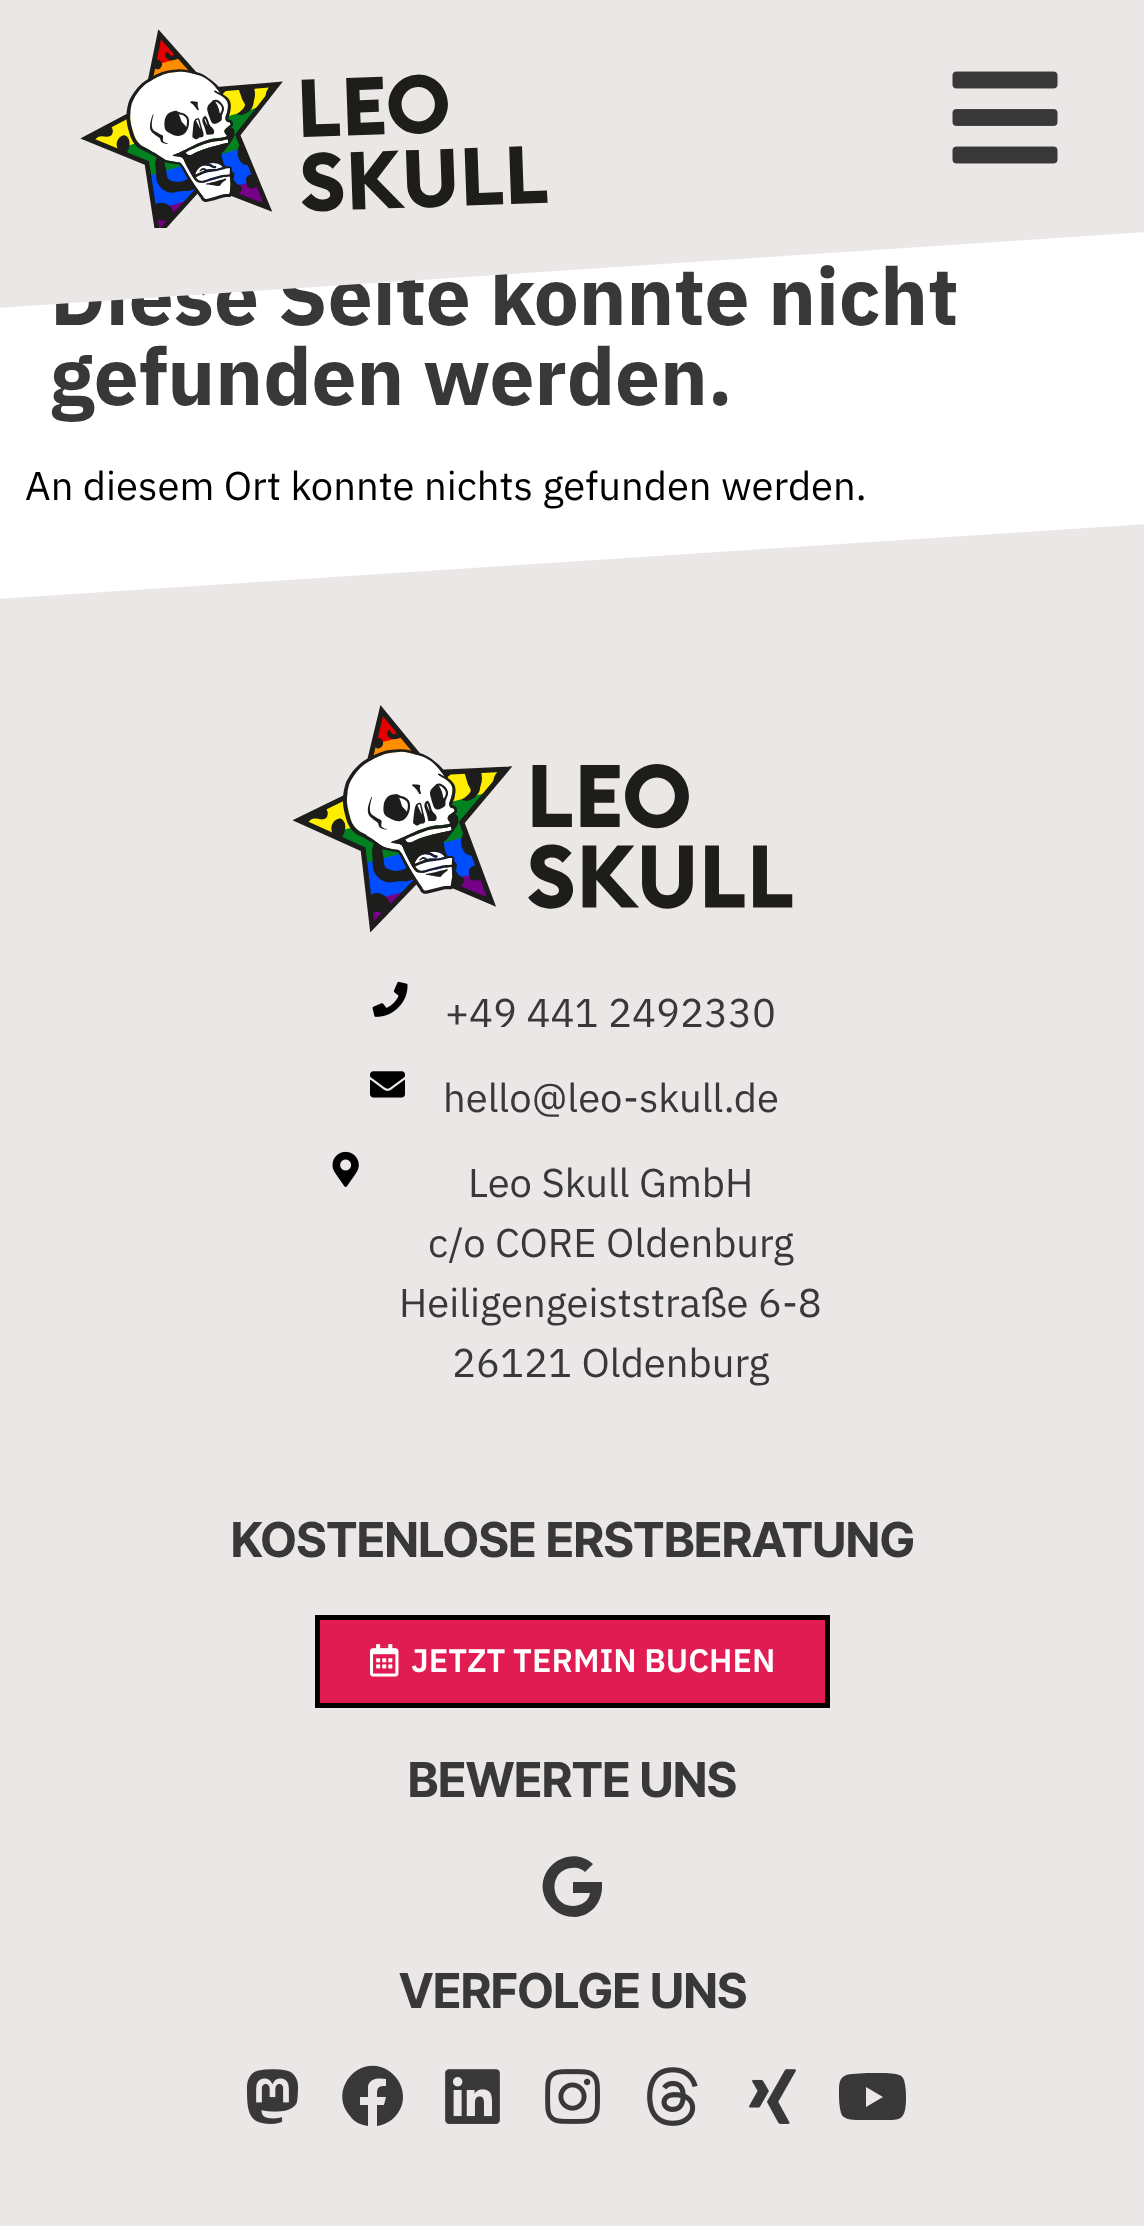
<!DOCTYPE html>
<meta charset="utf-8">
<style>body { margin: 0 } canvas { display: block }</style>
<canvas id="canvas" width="1144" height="2226"></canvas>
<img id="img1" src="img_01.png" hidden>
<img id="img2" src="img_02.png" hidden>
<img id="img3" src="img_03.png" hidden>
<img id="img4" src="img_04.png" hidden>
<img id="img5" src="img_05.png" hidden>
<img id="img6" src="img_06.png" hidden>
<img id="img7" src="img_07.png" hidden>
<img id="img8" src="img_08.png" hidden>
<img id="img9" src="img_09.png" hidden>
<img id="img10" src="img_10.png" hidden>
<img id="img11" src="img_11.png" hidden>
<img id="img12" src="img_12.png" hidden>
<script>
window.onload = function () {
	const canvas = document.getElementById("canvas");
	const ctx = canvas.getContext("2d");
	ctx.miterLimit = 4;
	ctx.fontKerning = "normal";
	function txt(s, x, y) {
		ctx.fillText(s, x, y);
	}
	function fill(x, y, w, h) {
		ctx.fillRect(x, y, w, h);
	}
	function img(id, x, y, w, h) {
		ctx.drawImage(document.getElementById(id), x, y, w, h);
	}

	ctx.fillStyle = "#FFFFFF";
	fill(0, 0, 1144, 2226);
	ctx.fillStyle = "#ECE7E7";
	fill(0, 0, 1144, 228);
	img("img1", 80, 29, 468, 199);
	img("img2", 952, 71, 106, 93);
	ctx.beginPath();
	ctx.moveTo(-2, 599);
	ctx.lineTo(-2, 604);
	ctx.lineTo(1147, 604);
	ctx.lineTo(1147, 524);
	ctx.closePath();
	ctx.fill();
	fill(0, 604, 1144, 1622);
	img("img3", 293, 705, 500, 228);
	img("img4", 372, 981, 36, 36);
	img("img5", 370, 1071, 35, 27);
	img("img6", 332, 1151, 27, 36);
	ctx.fillStyle = "#E11C53";
	ctx.beginPath();
	ctx.rect(317.5, 1617.5, 510, 88);
	ctx.fill();
	ctx.strokeStyle = "#000000";
	ctx.lineWidth = 5;
	ctx.stroke();
	img("img7", 370, 1644, 29, 33);
	ctx.fillStyle = "#383838";
	ctx.beginPath();
	ctx.moveTo(602, 1887);
	ctx.bezierCurveTo(602, 1903, 591, 1916, 575, 1917);
	ctx.bezierCurveTo(566, 1917, 558, 1914, 552, 1908);
	ctx.bezierCurveTo(547, 1903, 544, 1897, 543, 1891);
	ctx.bezierCurveTo(539, 1863, 573, 1845, 593, 1864);
	ctx.lineTo(585, 1872);
	ctx.bezierCurveTo(582, 1869, 577, 1867, 572, 1868);
	ctx.bezierCurveTo(548, 1869, 549, 1906, 573, 1906);
	ctx.bezierCurveTo(581, 1906, 589, 1901, 590, 1893);
	ctx.lineTo(573, 1893);
	ctx.lineTo(573, 1882);
	ctx.lineTo(602, 1882);
	ctx.closePath();
	ctx.fill();
	img("img8", 247, 2069, 51, 55);
	ctx.beginPath();
	ctx.moveTo(403, 2097);
	ctx.bezierCurveTo(403, 2111, 392, 2124, 377, 2126);
	ctx.lineTo(377, 2105);
	ctx.lineTo(384, 2105);
	ctx.lineTo(386, 2097);
	ctx.lineTo(377, 2097);
	ctx.bezierCurveTo(377, 2088, 377, 2086, 386, 2086);
	ctx.lineTo(386, 2079);
	ctx.bezierCurveTo(379, 2078, 370, 2078, 368, 2086);
	ctx.lineTo(368, 2097);
	ctx.lineTo(360, 2097);
	ctx.lineTo(360, 2105);
	ctx.lineTo(368, 2105);
	ctx.lineTo(368, 2126);
	ctx.bezierCurveTo(361, 2125, 354, 2122, 350, 2116);
	ctx.bezierCurveTo(327, 2090, 360, 2052, 389, 2071);
	ctx.bezierCurveTo(398, 2077, 403, 2087, 403, 2097);
	ctx.closePath();
	ctx.fill();
	img("img9", 445, 2069, 55, 55);
	img("img10", 545, 2069, 55, 55);
	img("img11", 647, 2067, 51, 59);
	img("img12", 749, 2069, 47, 55);
	ctx.beginPath();
	ctx.moveTo(904, 2080);
	ctx.bezierCurveTo(906, 2087, 906, 2094, 906, 2101);
	ctx.bezierCurveTo(905, 2122, 899, 2120, 880, 2120);
	ctx.lineTo(863, 2120);
	ctx.bezierCurveTo(857, 2120, 843, 2121, 841, 2113);
	ctx.bezierCurveTo(839, 2106, 839, 2099, 839, 2092);
	ctx.bezierCurveTo(839, 2081, 840, 2075, 852, 2074);
	ctx.lineTo(867, 2073);
	ctx.lineTo(886, 2073);
	ctx.bezierCurveTo(893, 2074, 902, 2073, 904, 2080);
	ctx.closePath();
	ctx.moveTo(866, 2107);
	ctx.lineTo(883, 2097);
	ctx.lineTo(866, 2087);
	ctx.closePath();
	ctx.fill();
	ctx.font = "bold 80px IBM Plex Sans";
	txt("Diese Seite konnte nicht", 50, 325);
	ctx.fillStyle = "#ECE7E7";
	ctx.beginPath();
	ctx.moveTo(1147, 232);
	ctx.lineTo(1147, 228);
	ctx.lineTo(-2, 228);
	ctx.lineTo(-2, 308);
	ctx.closePath();
	ctx.fill();
	ctx.fillStyle = "#383838";
	txt("gefunden werden.", 50, 405);
	ctx.font = "40px IBM Plex Sans";
	ctx.fillStyle = "#000000";
	txt("An diesem Ort konnte nichts gefunden werden.", 25, 500);
	ctx.fillStyle = "#383838";
	txt("+49 441 2492330", 445, 1027);
	txt("hello@leo-skull.de", 443, 1112);
	txt("Leo Skull GmbH", 468, 1197);
	txt("c/o CORE Oldenburg", 428, 1257);
	txt("Heiligengeiststraße 6-8", 399, 1317);
	txt("26121 Oldenburg", 452, 1377);
	ctx.font = "bold 48px Inter Tight";
	txt("KOSTENLOSE ERSTBERATUNG", 231, 1557);
	ctx.font = "600 32.5px IBM Plex Sans";
	ctx.fillStyle = "#FFFFFF";
	txt("JETZT TERMIN BUCHEN", 411, 1672);
	ctx.font = "bold 48px Inter Tight";
	ctx.fillStyle = "#383838";
	txt("BEWERTE UNS", 408, 1797);
	txt("VERFOLGE UNS", 399, 2008);
};
</script>
